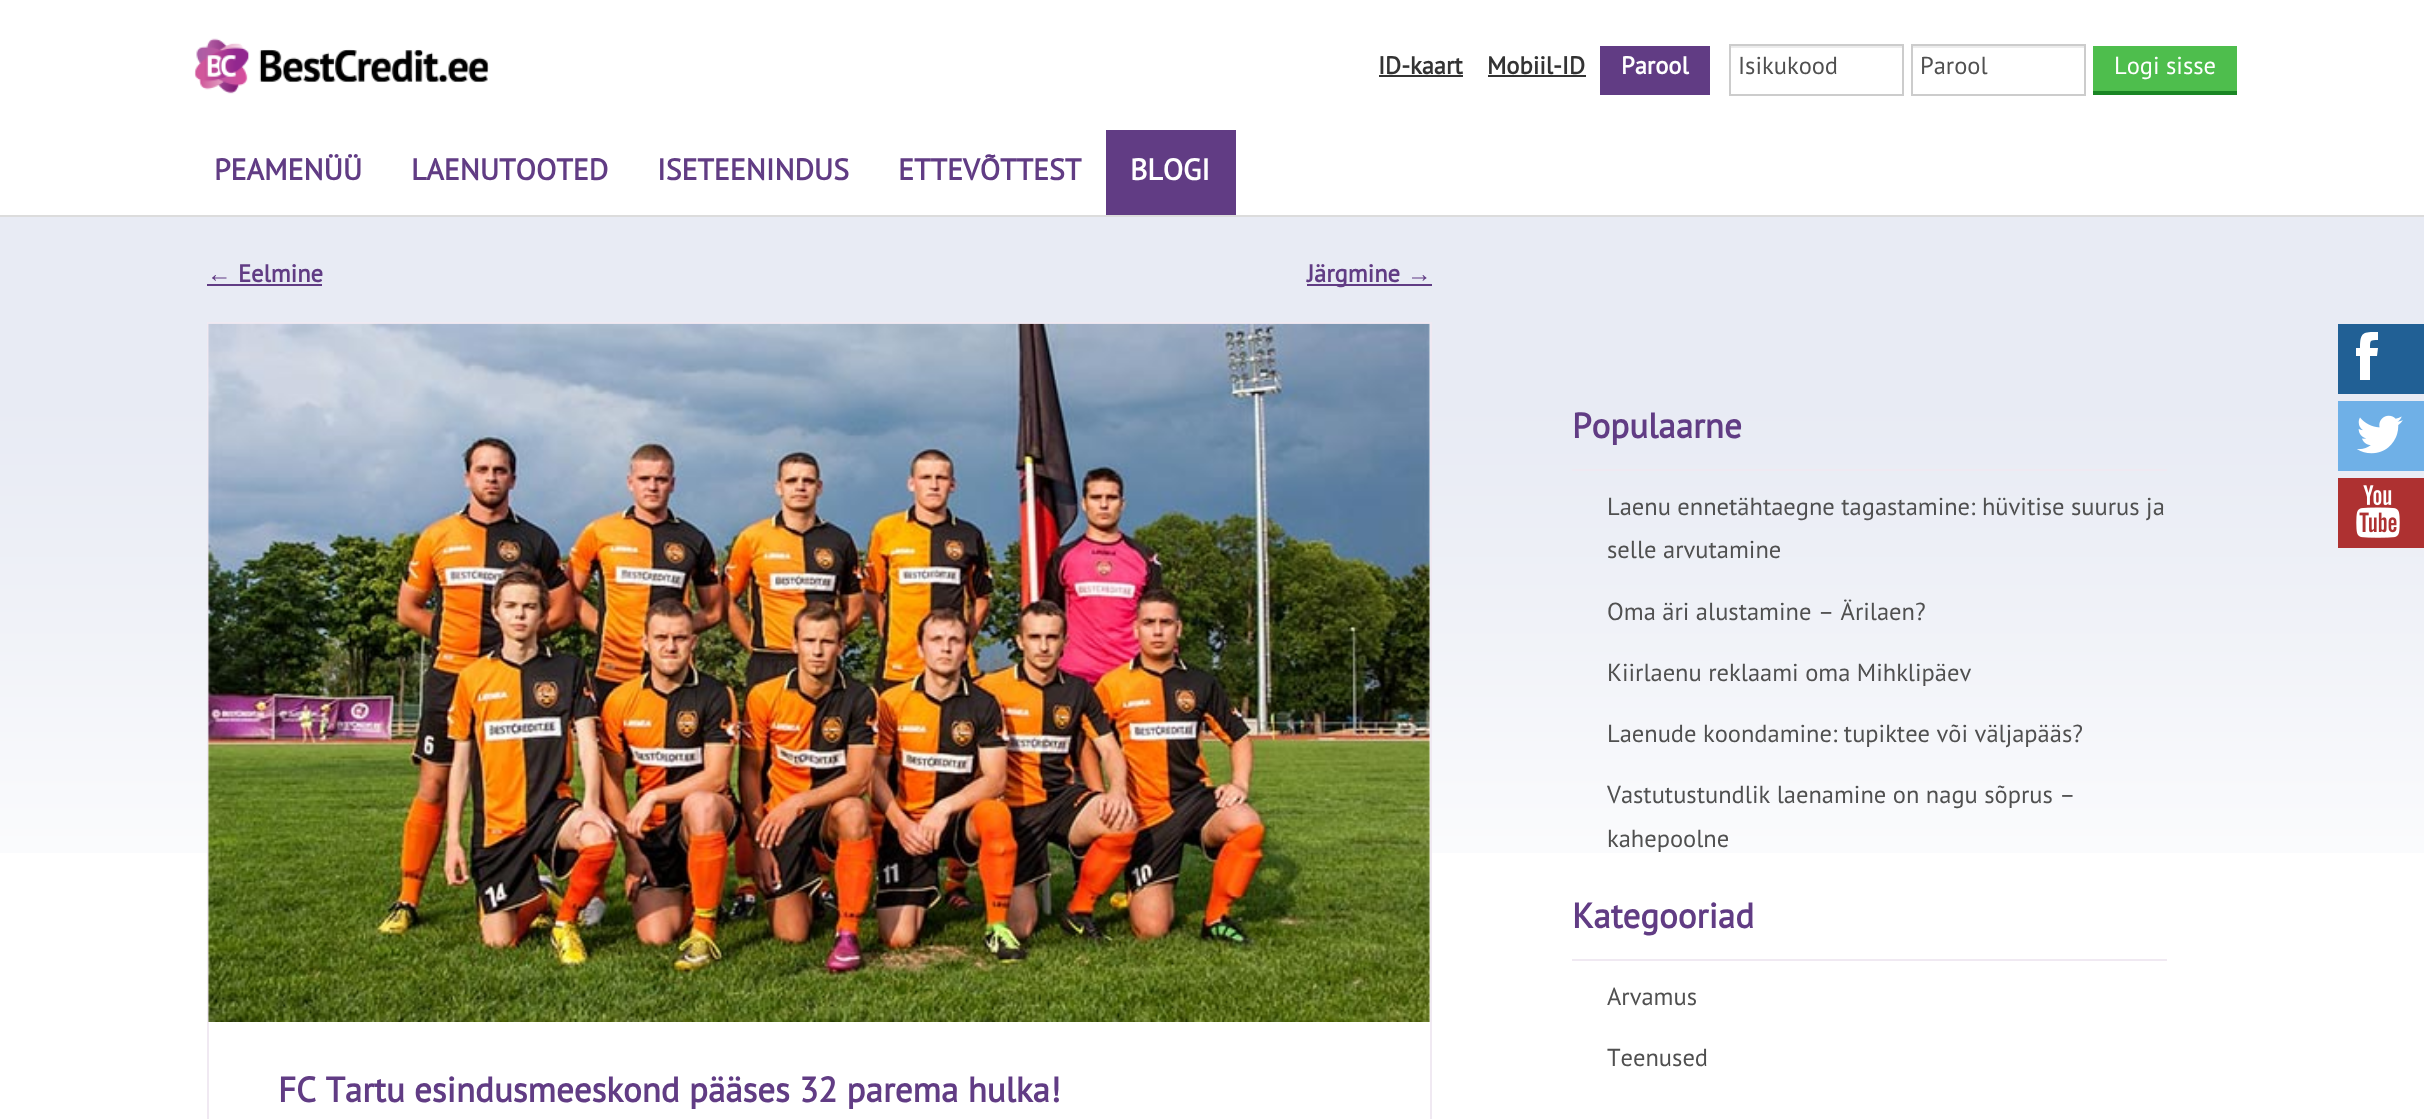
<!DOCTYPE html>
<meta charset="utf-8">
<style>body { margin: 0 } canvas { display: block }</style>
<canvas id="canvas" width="2424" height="1119"></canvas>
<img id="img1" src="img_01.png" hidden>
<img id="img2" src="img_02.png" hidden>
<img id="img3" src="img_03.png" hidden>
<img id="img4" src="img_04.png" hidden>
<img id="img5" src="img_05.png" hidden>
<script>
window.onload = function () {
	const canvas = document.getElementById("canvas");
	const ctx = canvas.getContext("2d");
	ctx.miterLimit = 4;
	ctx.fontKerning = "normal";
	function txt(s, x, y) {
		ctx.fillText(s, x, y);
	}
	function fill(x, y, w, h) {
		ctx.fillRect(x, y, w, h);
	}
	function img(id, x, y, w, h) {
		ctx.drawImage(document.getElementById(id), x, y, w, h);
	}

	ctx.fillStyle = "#FFFFFF";
	fill(0, 0, 2424, 1119);
	img("img1", 194, 38, 295, 56);
	ctx.fillStyle = "#333333";
	fill(1379, 75, 84, 2);
	fill(1488, 75, 98, 2);
	ctx.fillStyle = "#613C84";
	fill(1600, 46, 110, 49);
	ctx.fillStyle = "#ECECEC";
	fill(1731, 46, 171, 2);
	ctx.strokeStyle = "#CCCCCC";
	ctx.lineWidth = 2;
	ctx.strokeRect(1730, 45, 173, 50);
	fill(1913, 46, 171, 2);
	ctx.strokeRect(1912, 45, 173, 50);
	ctx.fillStyle = "#4EBE4D";
	fill(2093, 46, 144, 45);
	ctx.fillStyle = "#1A8624";
	fill(2093, 91, 144, 4);
	ctx.fillStyle = "#613C84";
	fill(1106, 130, 130, 85);
	ctx.fillStyle = "#DCDCDC";
	fill(0, 215, 2424, 2);
	img("img2", 0, 217, 2424, 636);
	ctx.fillStyle = "#613C84";
	fill(207, 284, 115, 2);
	fill(1307, 284, 125, 2);
	ctx.fillStyle = "#F0E9F2";
	fill(1572, 469, 595, 2);
	fill(1572, 959, 595, 2);
	ctx.fillStyle = "#FFFFFF";
	fill(209, 324, 1221, 529);
	ctx.strokeStyle = "#F0E9F2";
	ctx.strokeRect(208, 323, 1223, 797);
	img("img3", 208, 323, 1222, 699);
	ctx.fillStyle = "#216095";
	fill(2338, 324, 86, 70);
	ctx.fillStyle = "#FFFFFF";
	ctx.beginPath();
	ctx.moveTo(2370, 348);
	ctx.lineTo(2378, 348);
	ctx.lineTo(2377, 356);
	ctx.lineTo(2370, 356);
	ctx.lineTo(2370, 380);
	ctx.lineTo(2360, 380);
	ctx.lineTo(2360, 356);
	ctx.lineTo(2356, 356);
	ctx.lineTo(2356, 348);
	ctx.lineTo(2360, 348);
	ctx.bezierCurveTo(2360, 332, 2363, 332, 2378, 332);
	ctx.lineTo(2378, 340);
	ctx.bezierCurveTo(2370, 340, 2370, 340, 2370, 348);
	ctx.closePath();
	ctx.fill();
	ctx.fillStyle = "#6FB0E7";
	fill(2338, 401, 86, 70);
	img("img4", 2357, 415, 46, 39);
	ctx.fillStyle = "#AE3131";
	fill(2338, 478, 86, 70);
	img("img5", 2356, 485, 44, 53);
	ctx.font = "bold 24.5px PT Sans";
	ctx.fillStyle = "#333333";
	txt("ID-kaart", 1378, 74);
	txt("Mobiil-ID", 1487, 74);
	ctx.fillStyle = "#FFFFFF";
	txt("Parool", 1621, 74);
	ctx.font = "24.5px PT Sans";
	ctx.fillStyle = "#505050";
	txt("Isikukood", 1738, 74);
	txt("Parool", 1920, 74);
	ctx.fillStyle = "#FFFFFF";
	txt("Logi sisse", 2114, 74);
	ctx.font = "bold 29.75px PT Sans";
	ctx.fillStyle = "#613C84";
	txt("PEAMENÜÜ", 214, 180);
	txt("LAENUTOOTED", 411, 180);
	txt("ISETEENINDUS", 657, 180);
	txt("ETTEVÕTTEST", 898, 180);
	ctx.fillStyle = "#FFFFFF";
	txt("BLOGI", 1130, 180);
	ctx.font = "bold 24.5px Liberation Sans";
	ctx.fillStyle = "#613C84";
	txt("←", 207, 282);
	ctx.font = "bold 24.5px PT Sans";
	txt("Eelmine", 238, 282);
	txt("Järgmine", 1307, 282);
	ctx.font = "bold 24.5px Liberation Sans";
	txt("→", 1407, 282);
	ctx.font = "bold 35px PT Sans";
	txt("Populaarne", 1572, 438);
	ctx.font = "24.5px PT Sans";
	ctx.fillStyle = "#505050";
	txt("Laenu ennetähtaegne tagastamine: hüvitise suurus ja", 1607, 515);
	txt("selle arvutamine", 1607, 558);
	txt("Oma äri alustamine – Ärilaen?", 1607, 620);
	txt("Kiirlaenu reklaami oma Mihklipäev", 1607, 681);
	txt("Laenude koondamine: tupiktee või väljapääs?", 1607, 742);
	txt("Vastutustundlik laenamine on nagu sõprus –", 1607, 803);
	txt("kahepoolne", 1607, 847);
	ctx.font = "bold 35px PT Sans";
	ctx.fillStyle = "#613C84";
	txt("Kategooriad", 1572, 928);
	ctx.font = "24.5px PT Sans";
	ctx.fillStyle = "#505050";
	txt("Arvamus", 1607, 1005);
	txt("Teenused", 1607, 1066);
	ctx.font = "bold 35px PT Sans";
	ctx.fillStyle = "#613C84";
	txt("FC Tartu esindusmeeskond pääses 32 parema hulka!", 278, 1102);
};
</script>
